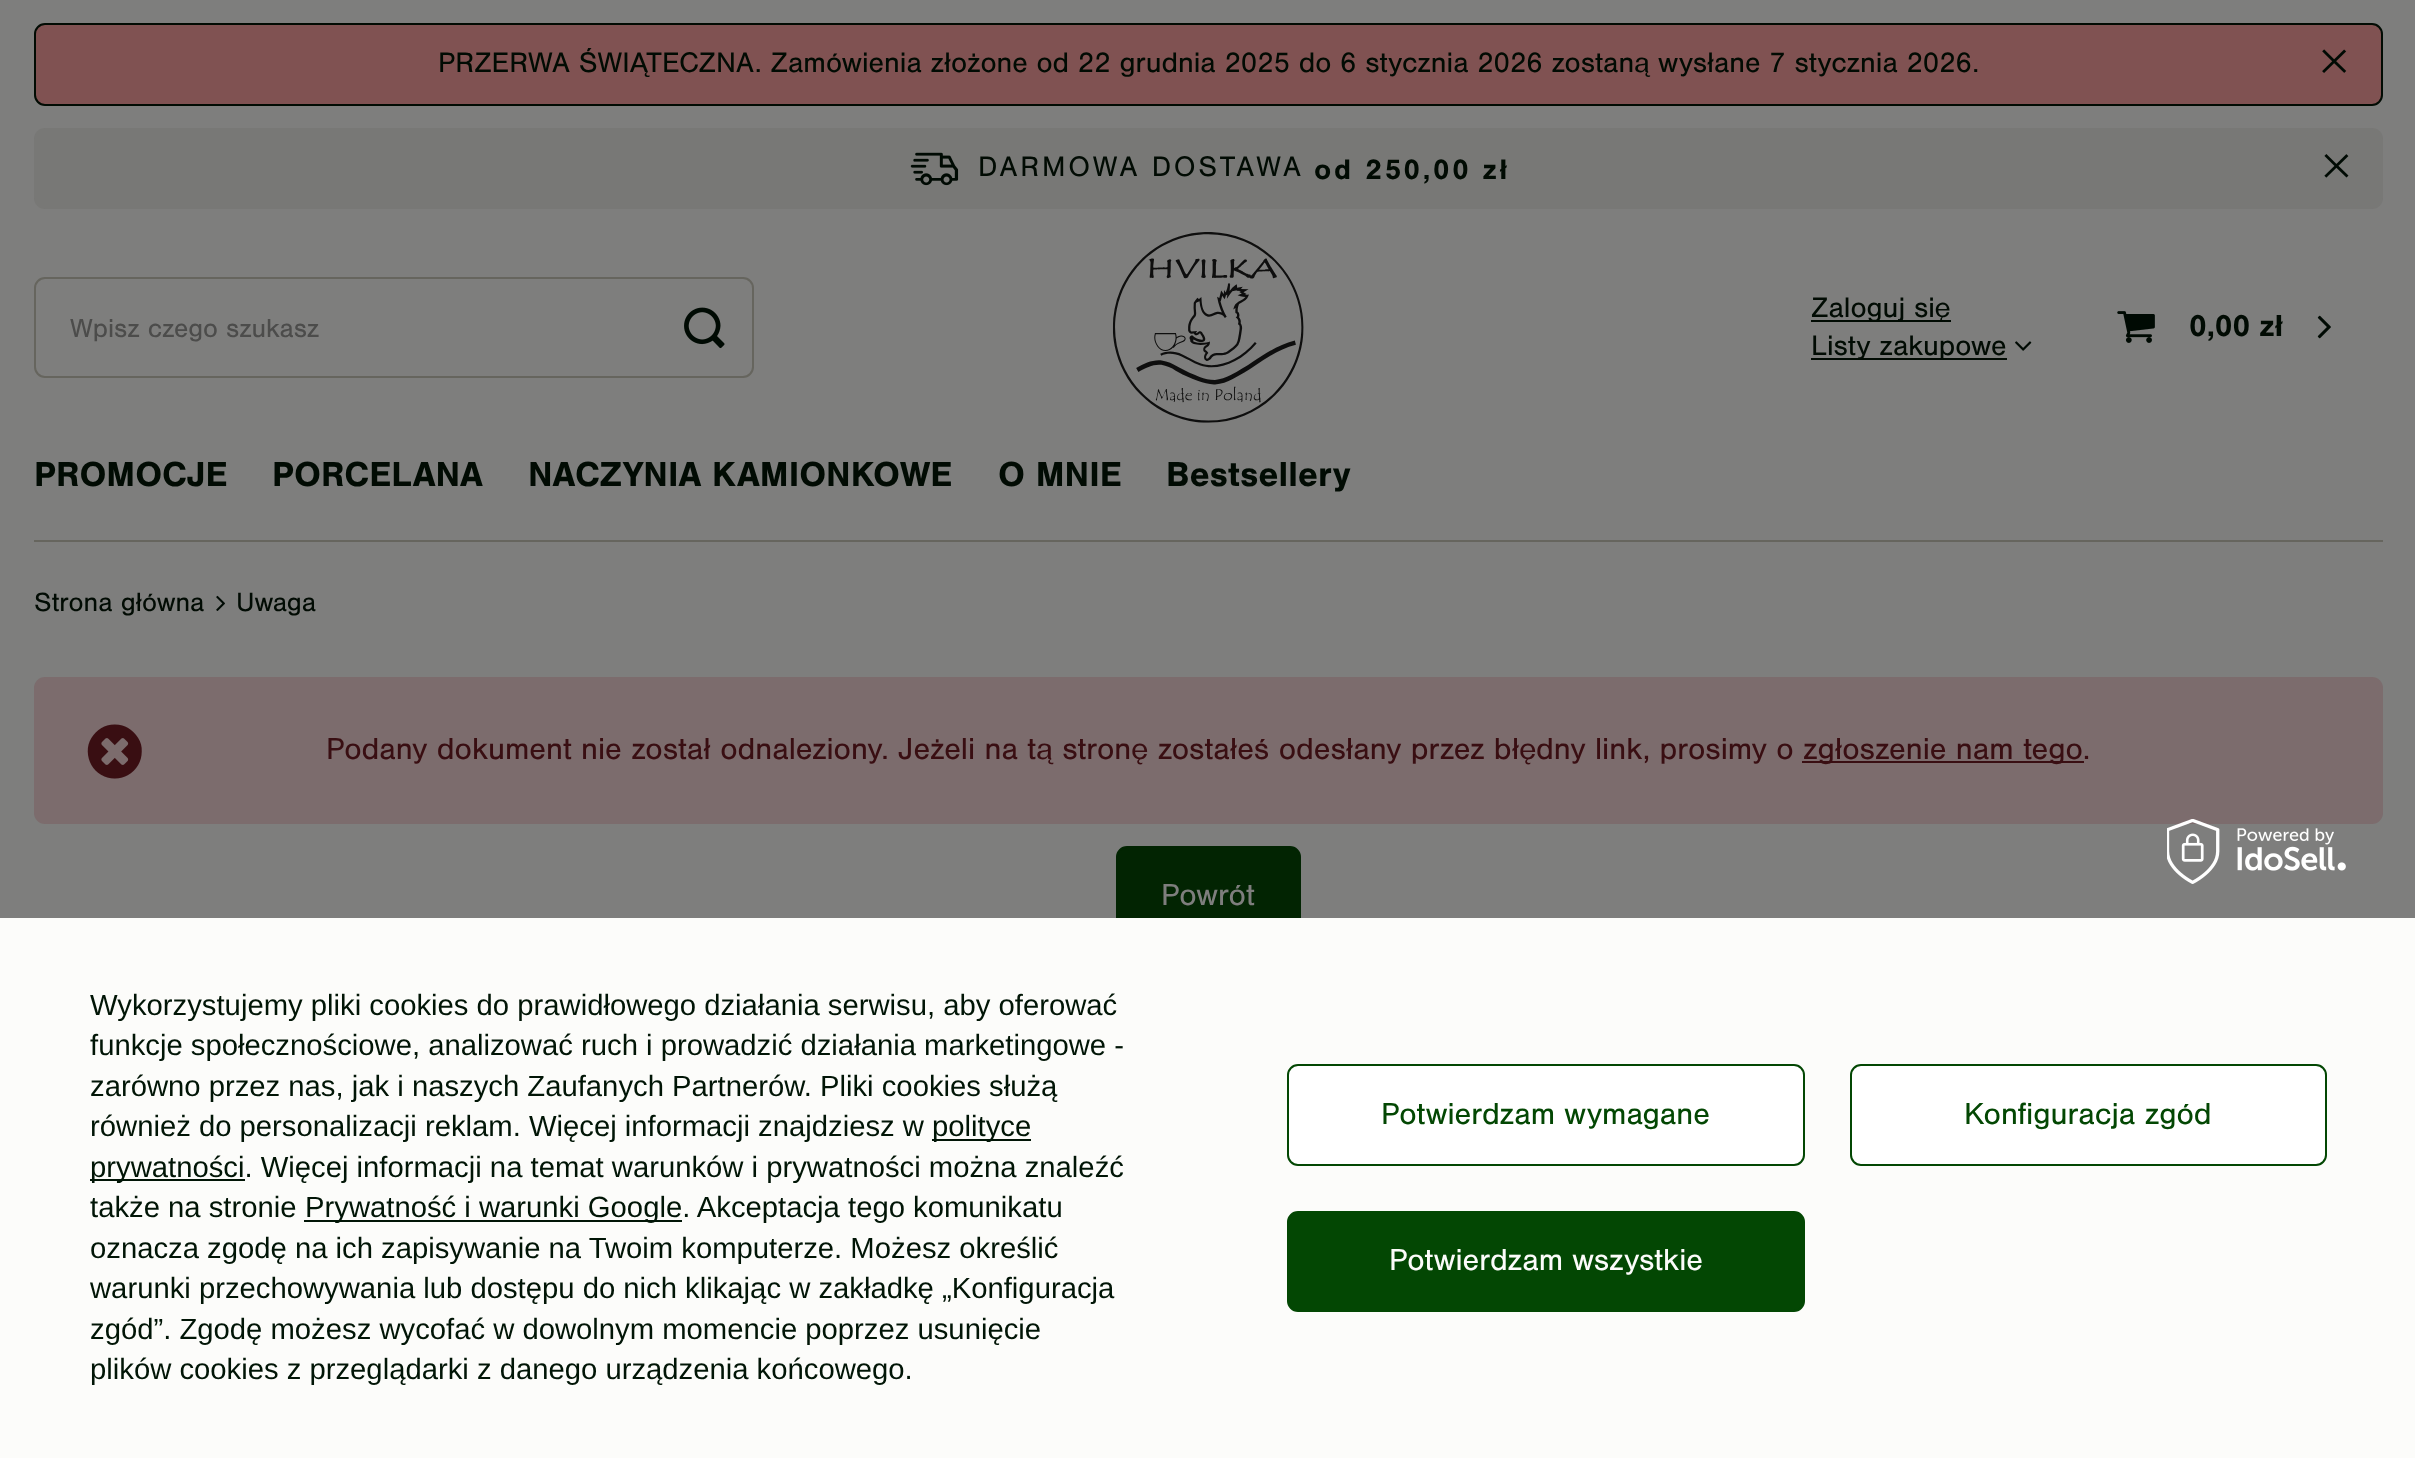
<!DOCTYPE html>
<meta charset="utf-8">
<style>body { margin: 0 } canvas { display: block }</style>
<canvas id="canvas" width="2415" height="1458"></canvas>
<img id="img1" src="img_01.png" hidden>
<img id="img2" src="img_02.png" hidden>
<img id="img3" src="img_03.png" hidden>
<img id="img4" src="img_04.png" hidden>
<img id="img5" src="img_05.png" hidden>
<img id="img6" src="img_06.png" hidden>
<img id="img7" src="img_07.png" hidden>
<img id="img8" src="img_08.png" hidden>
<img id="img9" src="img_09.png" hidden>
<img id="img10" src="img_10.png" hidden>
<img id="img11" src="img_11.png" hidden>
<script>
window.onload = function () {
	const canvas = document.getElementById("canvas");
	const ctx = canvas.getContext("2d");
	ctx.miterLimit = 4;
	ctx.fontKerning = "normal";
	function txt(s, x, y) {
		ctx.fillText(s, x, y);
	}
	function fill(x, y, w, h) {
		ctx.fillRect(x, y, w, h);
	}
	function round(x, y, w, h, r) {
		ctx.beginPath();
		ctx.roundRect(x, y, w, h, r);
		ctx.fill();
	}
	function img(id, x, y, w, h) {
		ctx.drawImage(document.getElementById(id), x, y, w, h);
	}

	ctx.fillStyle = "#7E7E7D";
	fill(0, 0, 2415, 1458);
	ctx.fillStyle = "#805252";
	ctx.beginPath();
	ctx.roundRect(35, 24, 2347, 81, 10);
	ctx.fill();
	ctx.strokeStyle = "#010B03";
	ctx.lineWidth = 2;
	ctx.stroke();
	img("img1", 2322, 49, 25, 24);
	ctx.fillStyle = "#787876";
	round(34, 128, 2349, 81, 11);
	img("img2", 910, 152, 49, 34);
	img("img3", 2324, 154, 25, 24);
	ctx.beginPath();
	ctx.roundRect(35, 278, 718, 99, 10);
	ctx.strokeStyle = "#66655E";
	ctx.stroke();
	img("img4", 684, 307, 41, 42);
	img("img5", 1112, 232, 192, 191);
	ctx.fillStyle = "#010B03";
	fill(1811, 320, 140, 2);
	fill(1811, 358, 196, 2);
	img("img6", 2015, 341, 17, 10);
	img("img7", 2117, 311, 38, 32);
	img("img8", 2317, 315, 14, 24);
	ctx.fillStyle = "#66655E";
	fill(34, 540, 2349, 2);
	img("img9", 216, 595, 9, 16);
	ctx.fillStyle = "#7C6C6D";
	round(34, 677, 2349, 147, 11);
	img("img10", 87, 724, 55, 55);
	ctx.fillStyle = "#390E12";
	fill(1802, 761, 282, 2);
	ctx.fillStyle = "#022402";
	ctx.beginPath();
	ctx.roundRect(1117, 847, 183, 99, 10);
	ctx.fill();
	ctx.strokeStyle = "#022402";
	ctx.stroke();
	ctx.fillStyle = "#FCFCFA";
	fill(0, 918, 2415, 540);
	img("img11", 2167, 819, 179, 65);
	ctx.fillStyle = "#011506";
	fill(932, 1139, 99, 2);
	fill(90, 1179, 155, 2);
	fill(304, 1220, 378, 2);
	ctx.fillStyle = "#FFFFFF";
	ctx.beginPath();
	ctx.roundRect(1288, 1065, 516, 100, 10);
	ctx.fill();
	ctx.strokeStyle = "#034703";
	ctx.stroke();
	ctx.beginPath();
	ctx.roundRect(1851, 1065, 475, 100, 10);
	ctx.fill();
	ctx.stroke();
	ctx.fillStyle = "#034703";
	ctx.beginPath();
	ctx.roundRect(1288, 1212, 516, 99, 10);
	ctx.fill();
	ctx.stroke();
	ctx.font = "29.25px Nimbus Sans";
	ctx.fillStyle = "#010B03";
	txt("PRZERWA ŚWIĄTECZNA. Zamówienia złożone od 22 grudnia 2025 do 6 stycznia 2026 zostaną wysłane 7 stycznia 2026.", 438, 72);
	ctx.letterSpacing = "2.75px";
	txt("DARMOWA DOSTAWA", 978, 176);
	ctx.font = "bold 29.25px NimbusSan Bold";
	txt("od 250,00 zł", 1314, 179);
	ctx.letterSpacing = "0px";
	ctx.font = "27px Nimbus Sans";
	ctx.fillStyle = "#4C4C4B";
	txt("Wpisz czego szukasz", 70, 337);
	ctx.font = "29.25px Nimbus Sans";
	ctx.fillStyle = "#010B03";
	txt("Zaloguj się", 1811, 317);
	txt("Listy zakupowe", 1811, 355);
	ctx.font = "bold 31.5px NimbusSan Bold";
	txt("0,00 zł", 2189, 336);
	ctx.font = "bold 36px NimbusSan Bold";
	txt("PROMOCJE", 34, 486);
	txt("PORCELANA", 272, 486);
	txt("NACZYNIA KAMIONKOWE", 528, 486);
	txt("O MNIE", 998, 486);
	txt("Bestsellery", 1166, 486);
	ctx.font = "27.25px Nimbus Sans";
	txt("Strona główna", 34, 611);
	txt("Uwaga", 236, 611);
	ctx.font = "31.5px Nimbus Sans";
	ctx.fillStyle = "#390E12";
	txt("Podany dokument nie został odnaleziony. Jeżeli na tą stronę zostałeś odesłany przez błędny link, prosimy o", 326, 759);
	txt("zgłoszenie nam tego.", 1803, 759);
	ctx.fillStyle = "#7E7E7D";
	txt("Powrót", 1161, 905);
	ctx.font = "29.25px Liberation Sans";
	ctx.fillStyle = "#011506";
	txt("Wykorzystujemy pliki cookies do prawidłowego działania serwisu, aby oferować", 90, 1015);
	txt("funkcje społecznościowe, analizować ruch i prowadzić działania marketingowe -", 90, 1055);
	txt("zarówno przez nas, jak i naszych Zaufanych Partnerów. Pliki cookies służą", 90, 1096);
	txt("również do personalizacji reklam. Więcej informacji znajdziesz w", 90, 1136);
	txt("polityce", 932, 1136);
	txt("prywatności. Więcej informacji na temat warunków i prywatności można znaleźć", 90, 1177);
	txt("także na stronie", 90, 1217);
	txt("Prywatność i warunki Google. Akceptacja tego komunikatu", 305, 1217);
	txt("oznacza zgodę na ich zapisywanie na Twoim komputerze. Możesz określić", 90, 1258);
	txt("warunki przechowywania lub dostępu do nich klikając w zakładkę „Konfiguracja", 90, 1298);
	txt("zgód”. Zgodę możesz wycofać w dowolnym momencie poprzez usunięcie", 90, 1339);
	txt("plików cookies z przeglądarki z danego urządzenia końcowego.", 90, 1379);
	ctx.font = "31.5px Nimbus Sans";
	ctx.fillStyle = "#034703";
	txt("Potwierdzam wymagane", 1381, 1124);
	txt("Konfiguracja zgód", 1964, 1124);
	ctx.fillStyle = "#FCFCFA";
	txt("Potwierdzam wszystkie", 1389, 1270);
};
</script>
